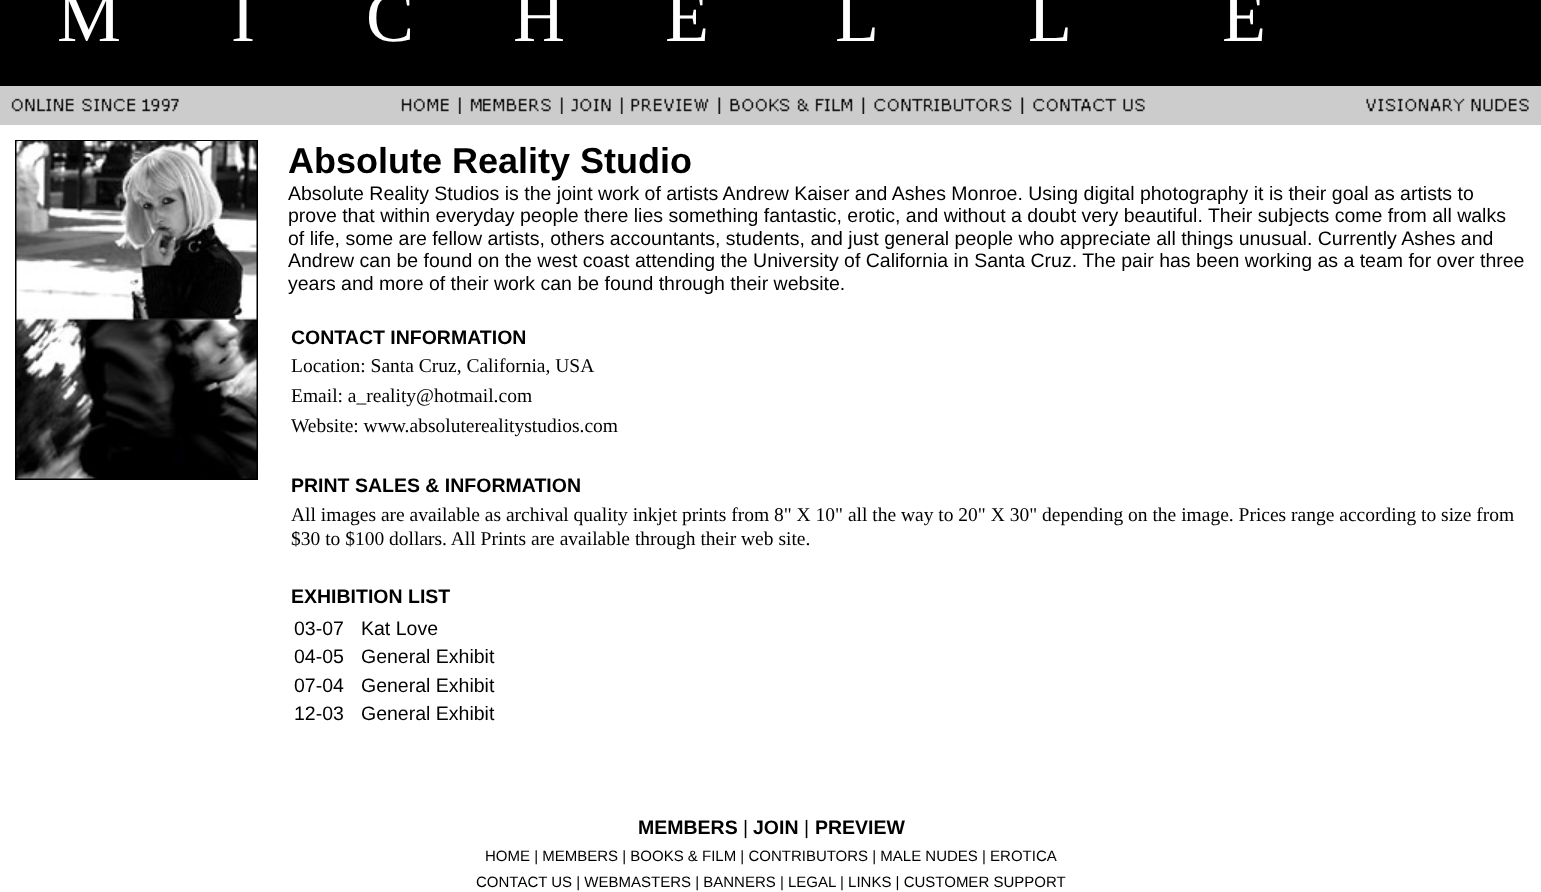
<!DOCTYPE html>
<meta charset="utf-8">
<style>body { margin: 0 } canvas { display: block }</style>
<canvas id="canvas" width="1541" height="892"></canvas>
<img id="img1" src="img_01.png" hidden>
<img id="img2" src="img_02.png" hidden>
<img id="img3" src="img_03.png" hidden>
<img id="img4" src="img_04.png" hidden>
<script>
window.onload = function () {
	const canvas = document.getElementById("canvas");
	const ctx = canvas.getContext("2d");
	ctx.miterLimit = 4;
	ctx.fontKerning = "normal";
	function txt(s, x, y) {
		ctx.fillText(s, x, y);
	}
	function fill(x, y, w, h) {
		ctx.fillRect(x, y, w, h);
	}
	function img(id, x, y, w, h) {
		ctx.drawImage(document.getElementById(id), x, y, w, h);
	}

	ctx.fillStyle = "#FFFFFF";
	fill(0, 0, 1541, 892);
	ctx.fillStyle = "#000000";
	fill(0, 0, 1541, 86);
	ctx.fillStyle = "#CCCCCC";
	fill(0, 86, 1541, 39);
	img("img1", 11, 98, 168, 14);
	img("img2", 401, 97, 744, 17);
	img("img3", 1366, 98, 163, 14);
	ctx.strokeStyle = "#000000";
	ctx.lineWidth = 2;
	ctx.strokeRect(16, 141, 241, 338);
	img("img4", 16, 141, 241, 338);
	ctx.font = "72px Liberation Serif";
	ctx.fillStyle = "#FFFFFF";
	txt("M", 57, 41);
	txt("I", 231, 41);
	txt("C", 366, 41);
	txt("H", 513, 41);
	txt("E", 665, 41);
	txt("L", 835, 41);
	txt("L", 1028, 41);
	txt("E", 1222, 41);
	ctx.font = "bold 36px Liberation Sans";
	ctx.fillStyle = "#000000";
	txt("Absolute Reality Studio", 288, 173);
	ctx.font = "19.5px Liberation Sans";
	txt("Absolute Reality Studios is the joint work of artists Andrew Kaiser and Ashes Monroe. Using digital photography it is their goal as artists to", 288, 200);
	txt("prove that within everyday people there lies something fantastic, erotic, and without a doubt very beautiful. Their subjects come from all walks", 288, 222);
	txt("of life, some are fellow artists, others accountants, students, and just general people who appreciate all things unusual. Currently Ashes and", 288, 245);
	txt("Andrew can be found on the west coast attending the University of California in Santa Cruz. The pair has been working as a team for over three", 288, 267);
	txt("years and more of their work can be found through their website.", 288, 290);
	ctx.font = "bold 19.5px Liberation Sans";
	txt("CONTACT INFORMATION", 291, 344);
	ctx.font = "19.5px Liberation Serif";
	txt("Location: Santa Cruz, California, USA", 291, 372);
	txt("Email: a_reality@hotmail.com", 291, 402);
	txt("Website: www.absoluterealitystudios.com", 291, 432);
	ctx.font = "bold 19.5px Liberation Sans";
	txt("PRINT SALES & INFORMATION", 291, 492);
	ctx.font = "19.5px Liberation Serif";
	txt("All images are available as archival quality inkjet prints from 8\" X 10\" all the way to 20\" X 30\" depending on the image. Prices range according to size from", 291, 521);
	txt("$30 to $100 dollars. All Prints are available through their web site.", 291, 545);
	ctx.font = "bold 19.5px Liberation Sans";
	txt("EXHIBITION LIST", 291, 603);
	ctx.font = "19.5px Liberation Sans";
	txt("03-07", 294, 635);
	txt("Kat Love", 361, 635);
	txt("04-05", 294, 663);
	txt("General Exhibit", 361, 663);
	txt("07-04", 294, 692);
	txt("General Exhibit", 361, 692);
	txt("12-03", 294, 720);
	txt("General Exhibit", 361, 720);
	ctx.font = "bold 19.5px Liberation Sans";
	txt("MEMBERS", 638, 834);
	ctx.font = "19.5px Liberation Sans";
	txt("|", 743, 834);
	ctx.font = "bold 19.5px Liberation Sans";
	txt("JOIN", 753, 834);
	ctx.font = "19.5px Liberation Sans";
	txt("|", 804, 834);
	ctx.font = "bold 19.5px Liberation Sans";
	txt("PREVIEW", 815, 834);
	ctx.font = "15px Liberation Sans";
	txt("HOME | MEMBERS | BOOKS & FILM | CONTRIBUTORS | MALE NUDES | EROTICA", 485, 861);
	txt("CONTACT US | WEBMASTERS | BANNERS | LEGAL", 476, 887);
	txt("| LINKS | CUSTOMER SUPPORT", 840, 887);
};
</script>
